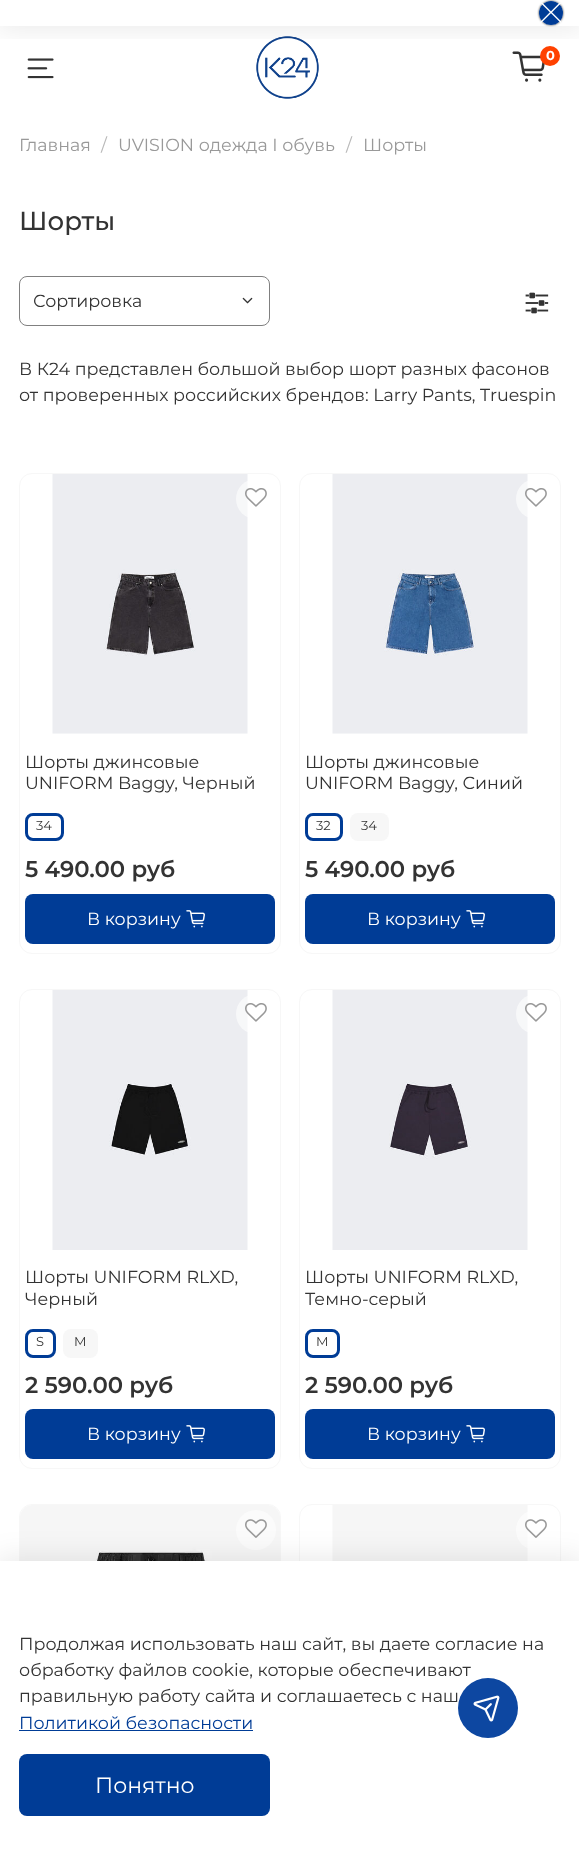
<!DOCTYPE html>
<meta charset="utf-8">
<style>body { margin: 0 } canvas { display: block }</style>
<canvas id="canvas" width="579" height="1862"></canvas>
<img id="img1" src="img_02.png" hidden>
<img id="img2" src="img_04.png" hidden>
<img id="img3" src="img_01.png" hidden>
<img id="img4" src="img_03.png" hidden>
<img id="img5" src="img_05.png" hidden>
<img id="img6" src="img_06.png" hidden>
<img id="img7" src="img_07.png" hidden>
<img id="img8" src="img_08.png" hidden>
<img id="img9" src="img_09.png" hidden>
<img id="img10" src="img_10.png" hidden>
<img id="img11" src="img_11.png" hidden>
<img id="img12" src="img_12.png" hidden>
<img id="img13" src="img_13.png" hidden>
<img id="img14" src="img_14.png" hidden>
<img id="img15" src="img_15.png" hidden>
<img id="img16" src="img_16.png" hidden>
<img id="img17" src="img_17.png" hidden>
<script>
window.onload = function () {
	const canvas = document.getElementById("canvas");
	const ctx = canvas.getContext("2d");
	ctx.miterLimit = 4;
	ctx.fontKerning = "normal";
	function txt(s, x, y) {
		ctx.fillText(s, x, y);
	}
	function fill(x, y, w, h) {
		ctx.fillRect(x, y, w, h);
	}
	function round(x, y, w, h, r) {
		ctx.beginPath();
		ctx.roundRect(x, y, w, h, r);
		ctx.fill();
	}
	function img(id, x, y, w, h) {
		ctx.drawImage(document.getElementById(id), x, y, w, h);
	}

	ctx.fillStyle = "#FFFFFF";
	fill(0, 0, 579, 1862);
	img("img1", 256, 36, 63, 63);
	img("img2", 27, 58, 27, 21);
	ctx.save();
	ctx.beginPath();
	ctx.rect(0, 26, 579, 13);
	ctx.clip();
	ctx.fillStyle = "rgba(0, 0, 0, 0.09)";
	ctx.filter = "blur(14.5px)";
	ctx.beginPath();
	ctx.rect(-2, -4, 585, 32);
	ctx.fill();
	ctx.filter = "none";
	ctx.restore();
	ctx.save();
	ctx.beginPath();
	ctx.moveTo(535, 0);
	ctx.lineTo(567, 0);
	ctx.lineTo(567, 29);
	ctx.lineTo(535, 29);
	ctx.closePath();
	ctx.moveTo(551, 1);
	ctx.bezierCurveTo(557.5, 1, 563, 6.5, 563, 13);
	ctx.bezierCurveTo(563, 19.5, 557.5, 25, 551, 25);
	ctx.bezierCurveTo(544.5, 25, 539, 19.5, 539, 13);
	ctx.bezierCurveTo(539, 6.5, 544.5, 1, 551, 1);
	ctx.closePath();
	ctx.clip("evenodd");
	ctx.fillStyle = "#333333";
	ctx.filter = "blur(1px)";
	ctx.beginPath();
	ctx.roundRect(539, 1, 24, 24, 12);
	ctx.fill();
	ctx.filter = "none";
	ctx.restore();
	ctx.fillStyle = "#003C96";
	ctx.beginPath();
	ctx.arc(551, 13, 12, 0, Math.PI * 2);
	ctx.fill();
	img("img3", 540, 3, 21, 20);
	img("img4", 512, 51, 33, 31);
	ctx.fillStyle = "#FF4100";
	ctx.beginPath();
	ctx.arc(550, 56, 10, 0, Math.PI * 2);
	ctx.fill();
	ctx.beginPath();
	ctx.roundRect(19.5, 276.5, 250, 49, 7.5);
	ctx.strokeStyle = "#808080";
	ctx.stroke();
	img("img5", 242, 297, 11, 7);
	img("img6", 525, 292, 24, 22);
	ctx.beginPath();
	ctx.roundRect(19.5, 473.5, 261, 480, 12.5);
	ctx.strokeStyle = "#F7F7F7";
	ctx.stroke();
	img("img7", 52, 474, 196, 260);
	ctx.fillStyle = "rgba(255, 255, 255, 0.6)";
	ctx.beginPath();
	ctx.arc(256, 499, 20, 0, Math.PI * 2);
	ctx.fill();
	img("img8", 245, 488, 22, 19);
	ctx.beginPath();
	ctx.roundRect(26.5, 814.5, 36, 25, 6.5);
	ctx.strokeStyle = "#003C96";
	ctx.lineWidth = 3;
	ctx.stroke();
	ctx.fillStyle = "#003C96";
	round(25, 894, 250, 50, 8);
	img("img9", 186, 910, 19, 18);
	ctx.beginPath();
	ctx.roundRect(299.5, 473.5, 261, 480, 12.5);
	ctx.strokeStyle = "#F7F7F7";
	ctx.lineWidth = 1;
	ctx.stroke();
	img("img10", 332, 474, 196, 260);
	ctx.fillStyle = "rgba(255, 255, 255, 0.6)";
	ctx.beginPath();
	ctx.arc(536, 499, 20, 0, Math.PI * 2);
	ctx.fill();
	img("img8", 525, 488, 22, 19);
	ctx.beginPath();
	ctx.roundRect(306.5, 814.5, 35, 25, 6.5);
	ctx.strokeStyle = "#003C96";
	ctx.lineWidth = 3;
	ctx.stroke();
	ctx.fillStyle = "#F7F7F7";
	round(350, 813, 39, 28, 8);
	ctx.fillStyle = "#003C96";
	round(305, 894, 250, 50, 8);
	img("img9", 466, 910, 19, 18);
	ctx.beginPath();
	ctx.roundRect(19.5, 989.5, 261, 479, 12.5);
	ctx.strokeStyle = "#F7F7F7";
	ctx.lineWidth = 1;
	ctx.stroke();
	img("img11", 52, 990, 196, 260);
	ctx.fillStyle = "rgba(255, 255, 255, 0.6)";
	ctx.beginPath();
	ctx.arc(256, 1014, 20, 0, Math.PI * 2);
	ctx.fill();
	img("img8", 245, 1003, 22, 19);
	ctx.beginPath();
	ctx.roundRect(26.5, 1330.5, 28, 26, 6.5);
	ctx.strokeStyle = "#003C96";
	ctx.lineWidth = 3;
	ctx.stroke();
	ctx.fillStyle = "#F7F7F7";
	round(63, 1329, 35, 29, 8);
	ctx.fillStyle = "#003C96";
	round(25, 1409, 250, 50, 8);
	img("img9", 186, 1425, 19, 18);
	ctx.beginPath();
	ctx.roundRect(299.5, 989.5, 261, 479, 12.5);
	ctx.strokeStyle = "#F7F7F7";
	ctx.lineWidth = 1;
	ctx.stroke();
	img("img12", 332, 990, 196, 260);
	ctx.fillStyle = "rgba(255, 255, 255, 0.6)";
	ctx.beginPath();
	ctx.arc(536, 1014, 20, 0, Math.PI * 2);
	ctx.fill();
	img("img8", 525, 1003, 22, 19);
	ctx.beginPath();
	ctx.roundRect(306.5, 1330.5, 32, 26, 6.5);
	ctx.strokeStyle = "#003C96";
	ctx.lineWidth = 3;
	ctx.stroke();
	ctx.fillStyle = "#003C96";
	round(305, 1409, 250, 50, 8);
	img("img9", 466, 1425, 19, 18);
	ctx.beginPath();
	ctx.roundRect(19.5, 1504.5, 261, 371, 12.5);
	ctx.strokeStyle = "#F7F7F7";
	ctx.lineWidth = 1;
	ctx.stroke();
	img("img13", 20, 1505, 260, 56);
	ctx.fillStyle = "#FBFBFB";
	ctx.beginPath();
	ctx.arc(256, 1530, 20, 0, Math.PI * 2);
	ctx.fill();
	img("img14", 245, 1519, 22, 19);
	ctx.beginPath();
	ctx.roundRect(299.5, 1504.5, 261, 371, 12.5);
	ctx.stroke();
	img("img15", 332, 1505, 196, 56);
	ctx.fillStyle = "rgba(255, 255, 255, 0.6)";
	ctx.beginPath();
	ctx.arc(536, 1530, 20, 0, Math.PI * 2);
	ctx.fill();
	img("img16", 525, 1519, 22, 19);
	ctx.fillStyle = "rgba(0, 0, 0, 0.09)";
	ctx.filter = "blur(14.5px)";
	ctx.beginPath();
	ctx.rect(-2, 1558, 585, 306);
	ctx.fill();
	ctx.filter = "none";
	ctx.fillStyle = "#FFFFFF";
	fill(0, 1561, 579, 301);
	ctx.fillStyle = "#003C96";
	fill(19, 1730, 234, 1);
	round(19, 1754, 251, 62, 8);
	ctx.font = "bold 13px Montserrat";
	ctx.fillStyle = "#FFFFFF";
	txt("0", 546, 60);
	ctx.font = "17.5px Montserrat";
	ctx.fillStyle = "#999999";
	txt("Главная", 19, 151);
	ctx.fillStyle = "#B8B8B8";
	txt("/", 101, 151);
	ctx.fillStyle = "#999999";
	txt("UVISION одежда I обувь", 118, 151);
	ctx.fillStyle = "#B8B8B8";
	txt("/", 346, 151);
	ctx.fillStyle = "#999999";
	txt("Шорты", 363, 151);
	ctx.font = "500 26px Montserrat";
	ctx.fillStyle = "#333333";
	txt("Шорты", 19, 230);
	ctx.font = "17.5px Montserrat";
	txt("Сортировка", 33, 307);
	txt("В К24 представлен большой выбор шорт разных фасонов", 19, 375);
	txt("от проверенных российских брендов: Larry Pants, Truespin", 19, 401);
	txt("Шорты джинсовые", 25, 768);
	txt("UNIFORM Baggy, Черный", 25, 789);
	ctx.font = "13px Montserrat";
	txt("34", 36, 830);
	ctx.font = "600 22.75px Montserrat";
	txt("5 490.00 руб", 25, 877);
	ctx.font = "17.5px Montserrat";
	ctx.fillStyle = "#FFFFFF";
	txt("В корзину", 87, 925);
	ctx.fillStyle = "#333333";
	txt("Шорты джинсовые", 305, 768);
	txt("UNIFORM Baggy, Синий", 305, 789);
	ctx.font = "13px Montserrat";
	txt("32", 316, 830);
	txt("34", 361, 830);
	ctx.font = "600 22.75px Montserrat";
	txt("5 490.00 руб", 305, 877);
	ctx.font = "17.5px Montserrat";
	ctx.fillStyle = "#FFFFFF";
	txt("В корзину", 367, 925);
	ctx.fillStyle = "#333333";
	txt("Шорты UNIFORM RLXD,", 25, 1283);
	txt("Черный", 25, 1305);
	ctx.font = "13px Montserrat";
	txt("S", 36, 1346);
	txt("M", 74, 1346);
	ctx.font = "600 22.75px Montserrat";
	txt("2 590.00 руб", 25, 1393);
	ctx.font = "17.5px Montserrat";
	ctx.fillStyle = "#FFFFFF";
	txt("В корзину", 87, 1440);
	ctx.fillStyle = "#333333";
	txt("Шорты UNIFORM RLXD,", 305, 1283);
	txt("Темно-серый", 305, 1305);
	ctx.font = "13px Montserrat";
	txt("M", 316, 1346);
	ctx.font = "600 22.75px Montserrat";
	txt("2 590.00 руб", 305, 1393);
	ctx.font = "17.5px Montserrat";
	ctx.fillStyle = "#FFFFFF";
	txt("В корзину", 367, 1440);
	ctx.fillStyle = "#333333";
	txt("Продолжая использовать наш сайт, вы даете согласие на", 19, 1650);
	txt("обработку файлов cookie, которые обеспечивают", 19, 1676);
	txt("правильную работу сайта и соглашаетесь с наш", 19, 1702);
	ctx.fillStyle = "#003C96";
	txt("Политикой безопасности", 19, 1729);
	ctx.font = "22px Montserrat";
	ctx.fillStyle = "#FFFFFF";
	txt("Понятно", 95, 1793);
	ctx.fillStyle = "#0D47A1";
	ctx.beginPath();
	ctx.arc(488, 1708, 30, 0, Math.PI * 2);
	ctx.fill();
	img("img17", 473, 1695, 27, 27);
};
</script>
